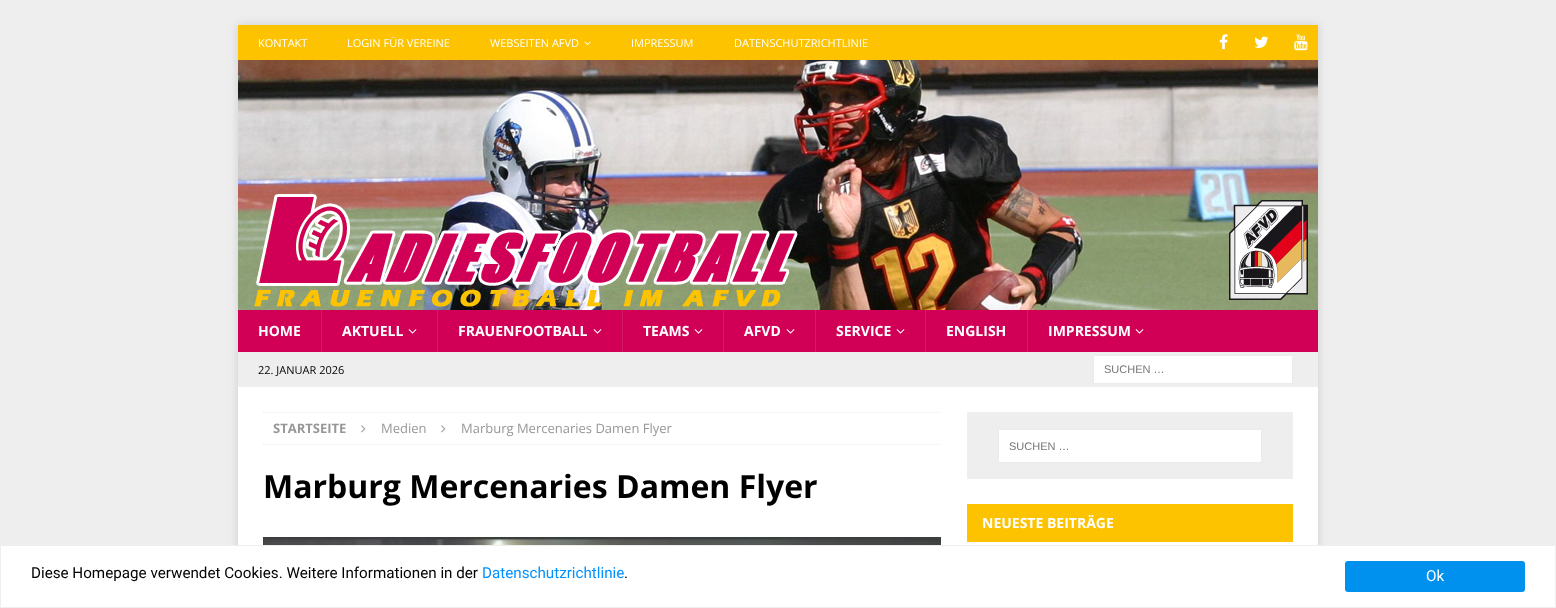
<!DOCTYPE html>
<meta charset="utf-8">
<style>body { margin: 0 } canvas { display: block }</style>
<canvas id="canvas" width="1556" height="608"></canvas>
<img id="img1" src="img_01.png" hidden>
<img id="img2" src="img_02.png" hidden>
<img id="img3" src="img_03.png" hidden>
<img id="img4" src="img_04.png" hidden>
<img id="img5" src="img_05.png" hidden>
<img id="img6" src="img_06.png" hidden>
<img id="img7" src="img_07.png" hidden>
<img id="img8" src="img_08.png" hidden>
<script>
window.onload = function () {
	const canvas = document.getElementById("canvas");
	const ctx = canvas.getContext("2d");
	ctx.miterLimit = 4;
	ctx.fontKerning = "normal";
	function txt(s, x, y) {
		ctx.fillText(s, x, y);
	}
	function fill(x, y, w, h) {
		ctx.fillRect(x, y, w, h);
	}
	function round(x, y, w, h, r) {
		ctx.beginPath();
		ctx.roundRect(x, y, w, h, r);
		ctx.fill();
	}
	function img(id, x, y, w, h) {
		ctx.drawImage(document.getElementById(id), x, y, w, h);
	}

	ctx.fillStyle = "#EEEEEE";
	fill(0, 0, 1556, 608);
	ctx.save();
	ctx.beginPath();
	ctx.moveTo(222, 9);
	ctx.lineTo(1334, 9);
	ctx.lineTo(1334, 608);
	ctx.lineTo(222, 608);
	ctx.closePath();
	ctx.moveTo(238, 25);
	ctx.lineTo(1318, 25);
	ctx.lineTo(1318, 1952);
	ctx.lineTo(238, 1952);
	ctx.closePath();
	ctx.clip("evenodd");
	ctx.fillStyle = "rgba(50, 50, 50, 0.17)";
	ctx.filter = "blur(5px)";
	ctx.beginPath();
	ctx.rect(238, 25, 1080, 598);
	ctx.fill();
	ctx.filter = "none";
	ctx.restore();
	ctx.fillStyle = "#FDC301";
	fill(238, 25, 1080, 35);
	img("img1", 584, 41, 7, 5);
	img("img2", 1219, 34, 9, 16);
	img("img3", 1254, 36, 15, 12);
	img("img4", 1294, 34, 14, 17);
	img("img5", 238, 60, 1080, 250);
	ctx.fillStyle = "#D10056";
	fill(238, 310, 1080, 42);
	ctx.fillStyle = "#D61A67";
	fill(321, 310, 1, 42);
	img("img6", 408, 329, 9, 5);
	fill(437, 310, 1, 42);
	img("img6", 593, 329, 9, 5);
	fill(622, 310, 1, 42);
	img("img6", 694, 329, 9, 5);
	fill(723, 310, 1, 42);
	img("img6", 786, 329, 9, 5);
	fill(815, 310, 1, 42);
	img("img6", 896, 329, 9, 5);
	fill(925, 310, 1, 42);
	fill(1027, 310, 1, 42);
	img("img6", 1135, 329, 9, 5);
	ctx.fillStyle = "#FFFFFF";
	ctx.beginPath();
	ctx.rect(1093.5, 355.5, 199, 28);
	ctx.fill();
	ctx.strokeStyle = "#EBEBEB";
	ctx.stroke();
	fill(238, 387, 1080, 158);
	ctx.beginPath();
	ctx.moveTo(263, 412.5);
	ctx.lineTo(941, 412.5);
	ctx.setLineDash([1, 1]);
	ctx.stroke();
	ctx.beginPath();
	ctx.moveTo(263, 444.5);
	ctx.lineTo(941, 444.5);
	ctx.stroke();
	img("img7", 361, 425, 5, 8);
	img("img7", 441, 425, 5, 8);
	img("img8", 263, 537, 678, 8);
	ctx.fillStyle = "#EEEEEE";
	fill(967, 412, 326, 67);
	ctx.fillStyle = "#FFFFFF";
	ctx.beginPath();
	ctx.rect(998.5, 429.5, 263, 33);
	ctx.fill();
	ctx.setLineDash([]);
	ctx.stroke();
	ctx.fillStyle = "#FDC301";
	fill(967, 504, 326, 38);
	ctx.fillStyle = "#FFFFFF";
	ctx.beginPath();
	ctx.rect(0.5, 545.5, 1555, 62);
	ctx.fill();
	ctx.strokeStyle = "#EEEEEE";
	ctx.stroke();
	ctx.fillStyle = "#0091EE";
	round(1345, 561, 180, 31, 3);
	ctx.font = "11px Open Sans";
	ctx.fillStyle = "#FFFFFF";
	txt("KONTAKT", 258, 47);
	txt("LOGIN FÜR VEREINE", 347, 47);
	txt("WEBSEITEN AFVD", 490, 47);
	txt("IMPRESSUM", 631, 47);
	txt("DATENSCHUTZRICHTLINIE", 734, 47);
	ctx.font = "bold 14px Open Sans";
	txt("HOME", 258, 336);
	txt("AKTUELL", 342, 336);
	txt("FRAUENFOOTBALL", 458, 336);
	txt("TEAMS", 643, 336);
	txt("AFVD", 744, 336);
	txt("SERVICE", 836, 336);
	txt("ENGLISH", 946, 336);
	txt("IMPRESSUM", 1048, 336);
	ctx.font = "11px Open Sans";
	ctx.fillStyle = "#000000";
	txt("22. JANUAR 2026", 258, 374);
	ctx.font = "11px Liberation Sans";
	ctx.fillStyle = "#757575";
	txt("SUCHEN …", 1104, 373);
	ctx.font = "bold 13px Open Sans";
	ctx.fillStyle = "#979797";
	txt("STARTSEITE", 273, 433);
	ctx.font = "13px Open Sans";
	txt("Medien", 381, 433);
	txt("Marburg Mercenaries Damen Flyer", 461, 433);
	ctx.font = "bold 32px Open Sans";
	ctx.fillStyle = "#000000";
	txt("Marburg Mercenaries Damen Flyer", 263, 498);
	ctx.font = "11px Liberation Sans";
	ctx.fillStyle = "#757575";
	txt("SUCHEN …", 1009, 450);
	ctx.font = "bold 14px Open Sans";
	ctx.fillStyle = "#FFFFFF";
	txt("NEUESTE BEITRÄGE", 982, 528);
	ctx.font = "15.2px Roboto";
	ctx.fillStyle = "#000000";
	txt("Diese Homepage verwendet Cookies. Weitere Informationen in der", 31, 578);
	ctx.fillStyle = "#0091FF";
	txt("Datenschutzrichtlinie", 482, 578);
	ctx.fillStyle = "#000000";
	txt(".", 624, 578);
	ctx.fillStyle = "#FFFFFF";
	txt("Ok", 1426, 581);
};
</script>
